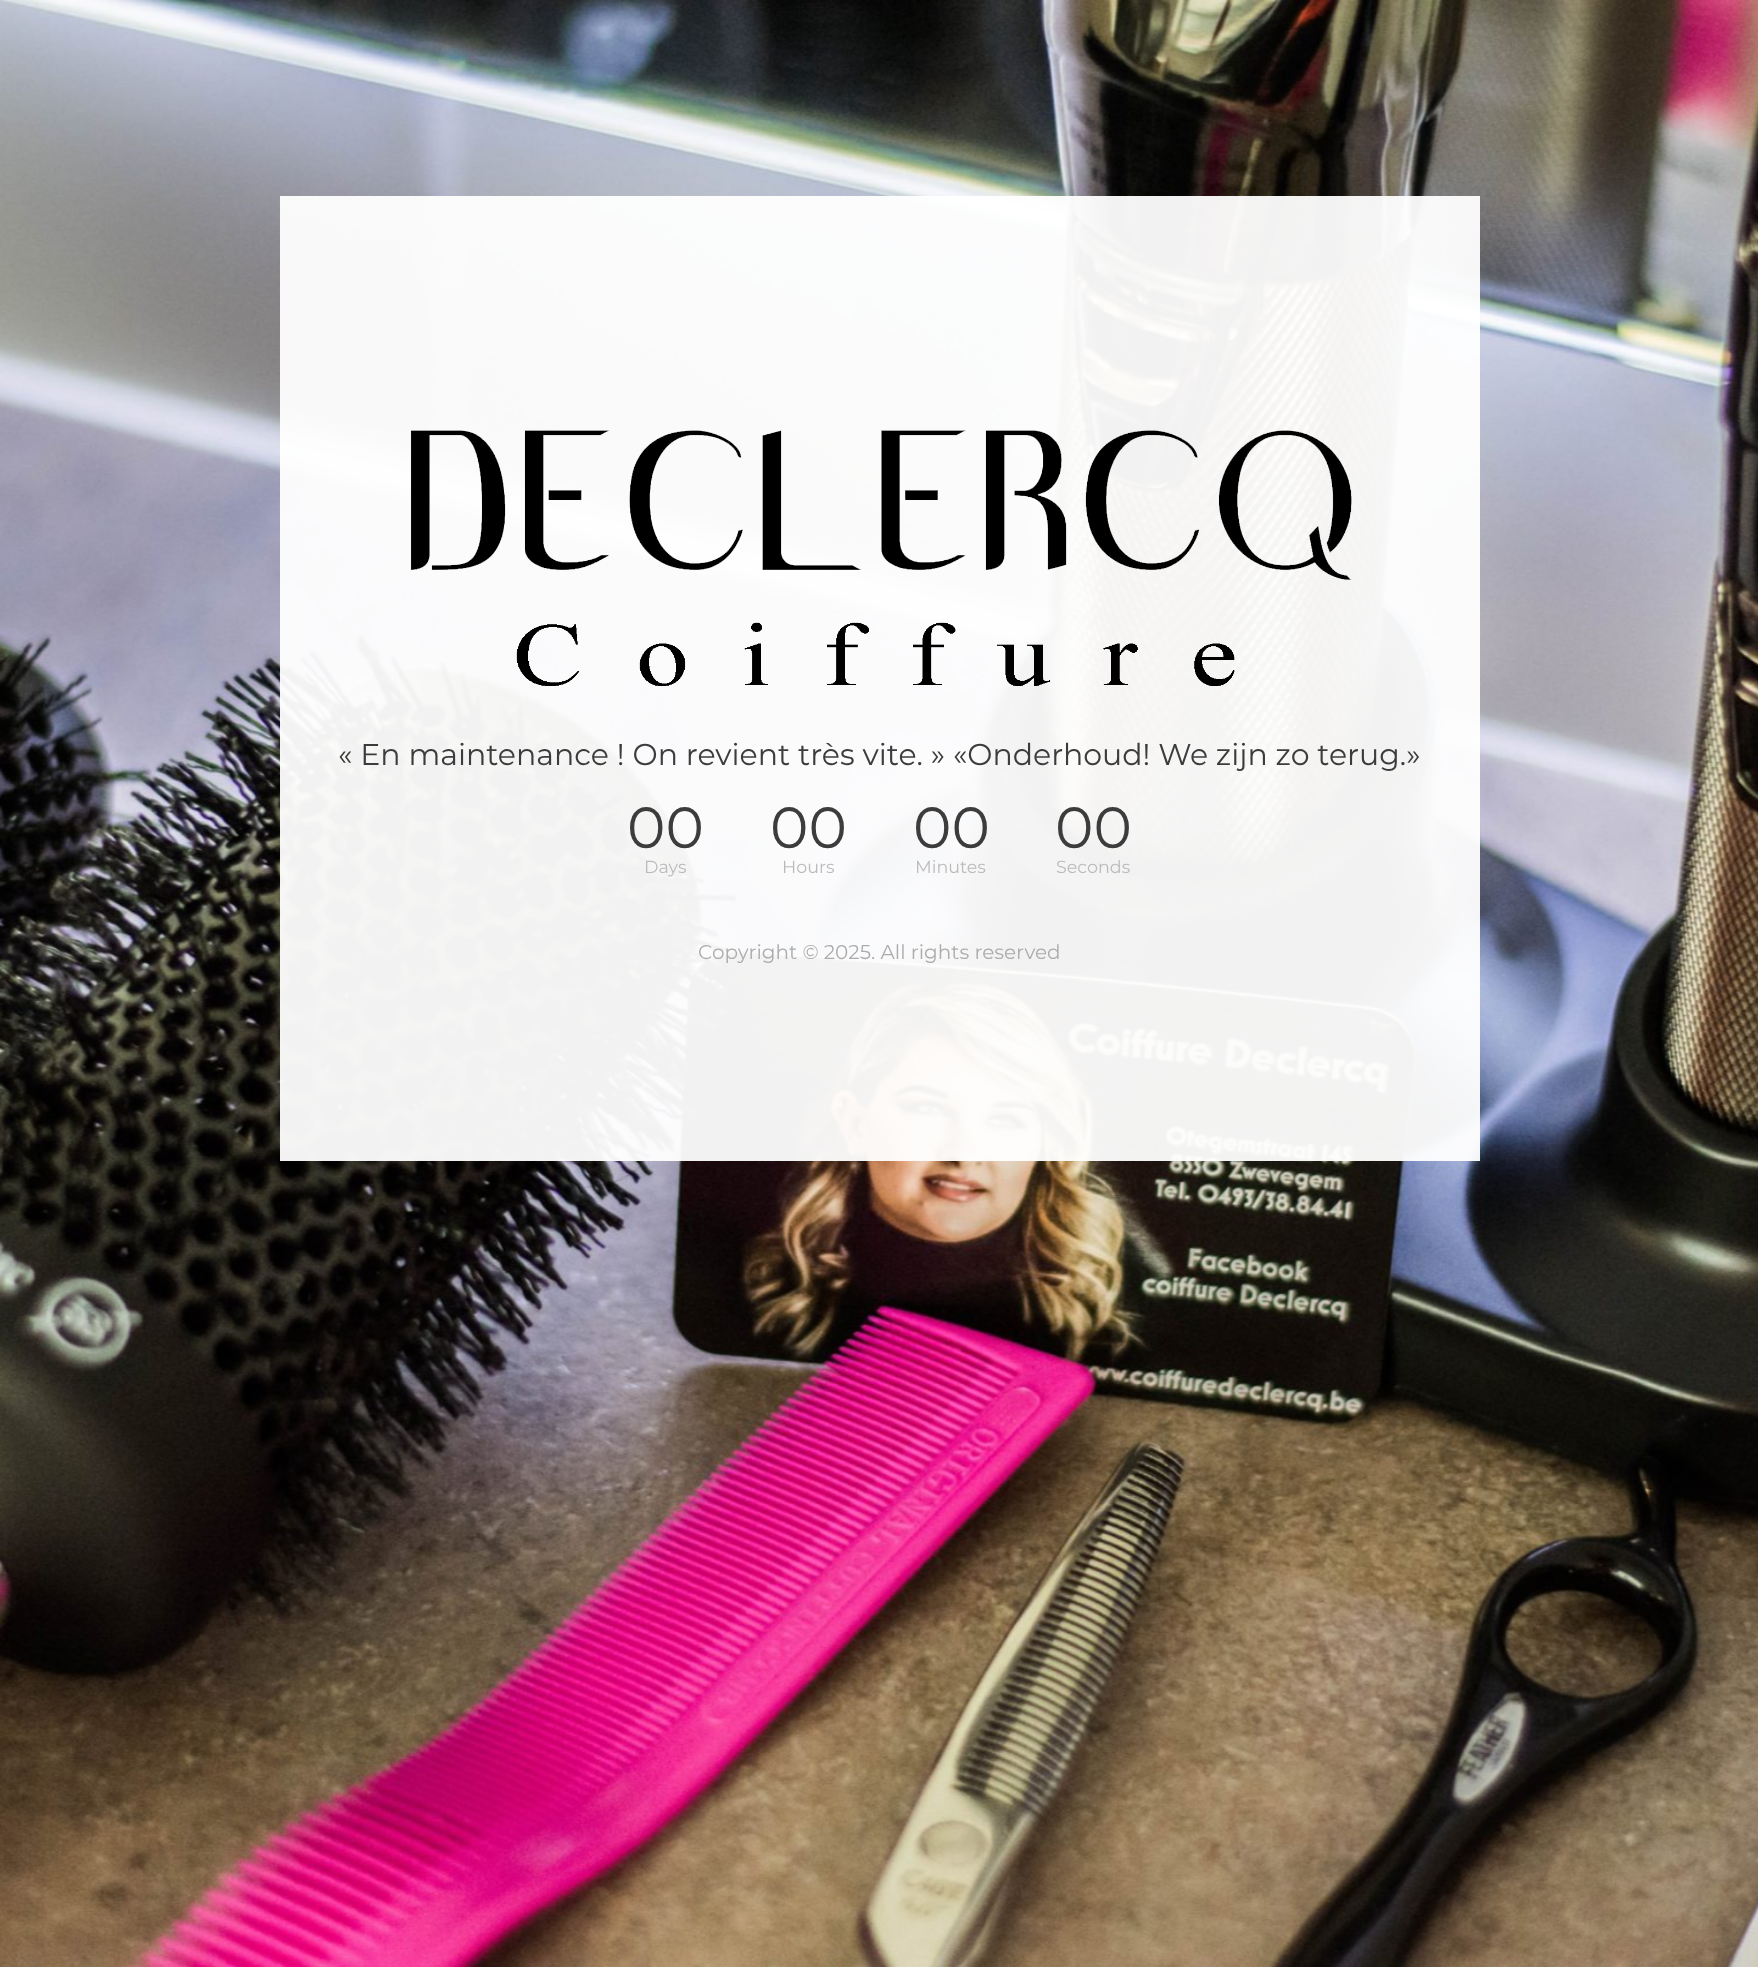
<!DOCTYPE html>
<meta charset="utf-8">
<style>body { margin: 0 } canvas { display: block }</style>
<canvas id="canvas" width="1758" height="1967"></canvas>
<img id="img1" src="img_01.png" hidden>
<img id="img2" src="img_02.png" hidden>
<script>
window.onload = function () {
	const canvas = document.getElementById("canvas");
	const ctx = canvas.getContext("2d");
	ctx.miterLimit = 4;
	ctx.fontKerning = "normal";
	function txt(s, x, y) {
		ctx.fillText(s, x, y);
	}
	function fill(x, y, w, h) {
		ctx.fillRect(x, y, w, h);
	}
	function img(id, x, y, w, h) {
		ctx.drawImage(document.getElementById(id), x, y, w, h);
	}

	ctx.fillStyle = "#FFFFFF";
	fill(0, 0, 1758, 1967);
	img("img1", 0, 0, 1758, 1967);
	ctx.fillStyle = "rgba(255, 255, 255, 0.95)";
	fill(280, 196, 1200, 965);
	img("img2", 410, 430, 942, 256);
	ctx.font = "30px Montserrat";
	ctx.fillStyle = "#3C3C3C";
	txt("« En maintenance ! On revient très vite. » «Onderhoud! We zijn zo terug.»", 338, 765);
	ctx.font = "58px Montserrat";
	txt("00", 627, 848);
	ctx.font = "17.5px Montserrat";
	ctx.fillStyle = "#BBBBBB";
	txt("Days", 644, 873);
	ctx.font = "58px Montserrat";
	ctx.fillStyle = "#3C3C3C";
	txt("00", 770, 848);
	ctx.font = "17.5px Montserrat";
	ctx.fillStyle = "#BBBBBB";
	txt("Hours", 782, 873);
	ctx.font = "58px Montserrat";
	ctx.fillStyle = "#3C3C3C";
	txt("00", 913, 848);
	ctx.font = "17.5px Montserrat";
	ctx.fillStyle = "#BBBBBB";
	txt("Minutes", 915, 873);
	ctx.font = "58px Montserrat";
	ctx.fillStyle = "#3C3C3C";
	txt("00", 1055, 848);
	ctx.font = "17.5px Montserrat";
	ctx.fillStyle = "#BBBBBB";
	txt("Seconds", 1056, 873);
	ctx.font = "20px Montserrat";
	ctx.fillStyle = "#ACACAC";
	txt("Copyright © 2025. All rights reserved", 698, 959);
};
</script>
